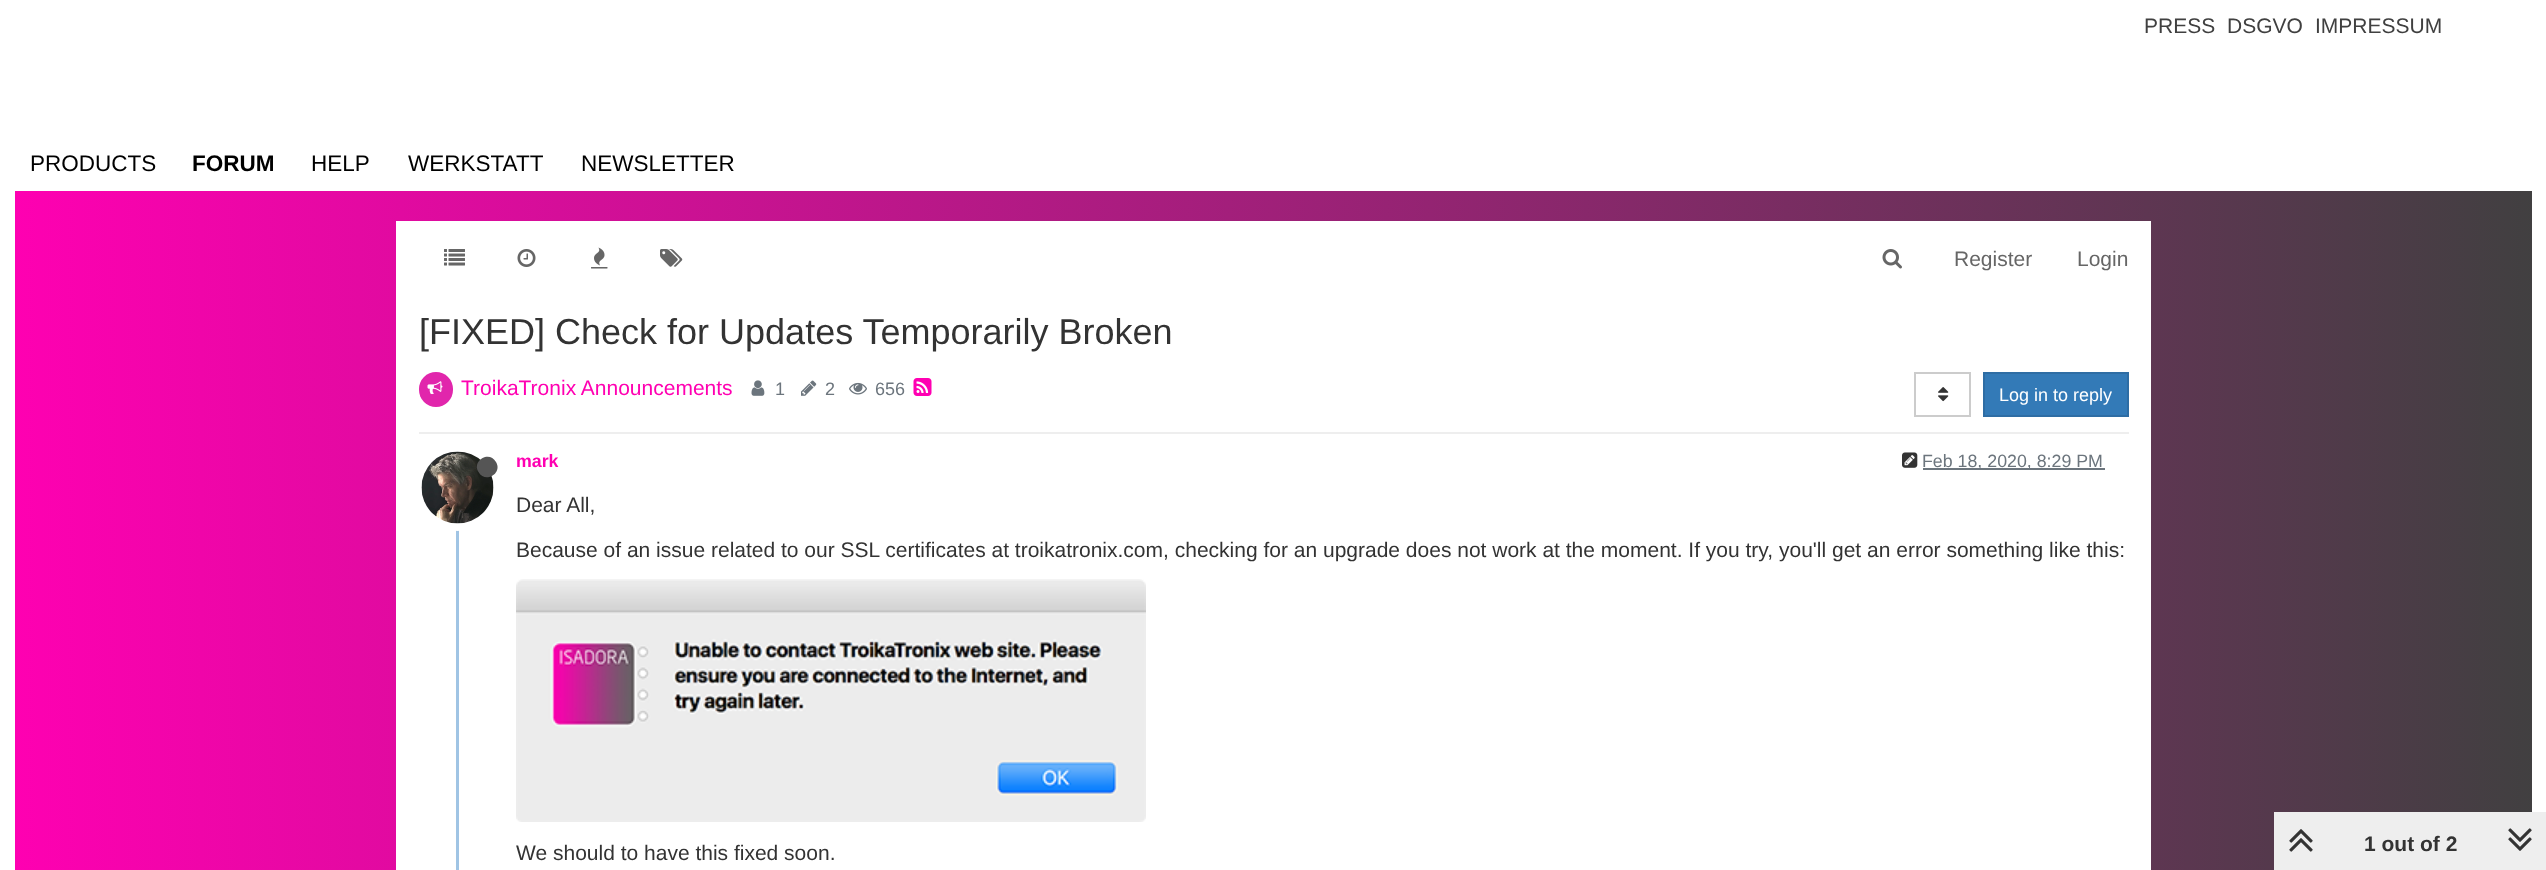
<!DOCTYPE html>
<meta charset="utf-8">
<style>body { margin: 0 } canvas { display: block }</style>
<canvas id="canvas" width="2546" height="870"></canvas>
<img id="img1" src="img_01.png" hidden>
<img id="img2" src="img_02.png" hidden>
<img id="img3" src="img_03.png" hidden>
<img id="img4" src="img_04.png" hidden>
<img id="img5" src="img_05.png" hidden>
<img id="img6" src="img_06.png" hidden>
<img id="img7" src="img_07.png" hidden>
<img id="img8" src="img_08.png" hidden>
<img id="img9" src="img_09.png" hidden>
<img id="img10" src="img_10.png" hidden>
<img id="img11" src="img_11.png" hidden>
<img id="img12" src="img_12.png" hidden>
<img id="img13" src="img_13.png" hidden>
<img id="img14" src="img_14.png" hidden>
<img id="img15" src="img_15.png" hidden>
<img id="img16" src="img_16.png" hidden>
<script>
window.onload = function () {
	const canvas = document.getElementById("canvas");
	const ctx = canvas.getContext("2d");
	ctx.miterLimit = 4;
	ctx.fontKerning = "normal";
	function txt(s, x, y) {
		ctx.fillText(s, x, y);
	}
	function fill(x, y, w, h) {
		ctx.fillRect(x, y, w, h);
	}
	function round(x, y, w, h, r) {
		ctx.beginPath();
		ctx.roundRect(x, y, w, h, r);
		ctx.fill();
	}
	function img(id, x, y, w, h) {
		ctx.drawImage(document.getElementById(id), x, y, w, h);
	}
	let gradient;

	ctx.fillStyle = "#FFFFFF";
	fill(0, 0, 2546, 870);
	gradient = ctx.createLinearGradient(0, 435, 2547, 435);
	gradient.addColorStop(0, "#FF00B2");
	gradient.addColorStop(1, "#404040");
	ctx.fillStyle = gradient;
	fill(15, 191, 2517, 679);
	ctx.fillStyle = "#FFFFFF";
	fill(396, 221, 1755, 649);
	img("img1", 444, 249, 21, 17);
	img("img2", 517, 249, 19, 18);
	img("img3", 591, 247, 17, 22);
	img("img4", 660, 249, 23, 18);
	img("img5", 1882, 249, 20, 20);
	ctx.fillStyle = "#EEEEEE";
	fill(419, 432, 1710, 2);
	ctx.fillStyle = "#E126AC";
	round(419, 372, 34, 35, 17);
	img("img6", 427, 381, 16, 14);
	img("img7", 751, 380, 14, 16);
	img("img8", 801, 380, 16, 16);
	img("img9", 849, 382, 18, 13);
	img("img10", 913, 378, 19, 18);
	ctx.strokeStyle = "#CCCCCC";
	ctx.lineWidth = 2;
	ctx.strokeRect(1915, 373, 55, 43);
	img("img11", 1938, 387, 11, 15);
	ctx.fillStyle = "#337AB7";
	ctx.beginPath();
	ctx.rect(1984, 373, 144, 43);
	ctx.fill();
	ctx.strokeStyle = "#2E6DA4";
	ctx.stroke();
	ctx.fillStyle = "#A0C4E4";
	fill(456, 530, 3, 340);
	ctx.beginPath();
	ctx.arc(457.5, 487.5, 39.5, 0, Math.PI * 2);
	ctx.strokeStyle = "#FFFFFF";
	ctx.lineWidth = 8;
	ctx.stroke();
	img("img12", 421, 451, 73, 73);
	ctx.fillStyle = "#555555";
	ctx.beginPath();
	ctx.moveTo(496, 462);
	ctx.bezierCurveTo(503, 473.5, 485, 484, 478.5, 472);
	ctx.bezierCurveTo(471.5, 460.5, 489.5, 450, 496, 462);
	ctx.closePath();
	ctx.fill();
	img("img13", 1902, 452, 16, 16);
	ctx.fillStyle = "#6C757D";
	fill(1923, 468, 182, 2);
	img("img14", 516, 579, 630, 243);
	ctx.fillStyle = "#EEEEEE";
	fill(2274, 812, 272, 58);
	img("img15", 2289, 829, 24, 23);
	img("img16", 2508, 828, 24, 23);
	ctx.font = "21px Liberation Sans";
	ctx.fillStyle = "#404040";
	txt("PRESS", 2144, 33);
	txt("DSGVO", 2227, 33);
	txt("IMPRESSUM", 2315, 33);
	ctx.font = "22.5px Liberation Sans";
	ctx.fillStyle = "#000000";
	txt("PRODUCTS", 30, 171);
	ctx.font = "bold 22.5px Liberation Sans";
	txt("FORUM", 192, 171);
	ctx.font = "22.5px Liberation Sans";
	txt("HELP", 311, 171);
	txt("WERKSTATT", 408, 171);
	txt("NEWSLETTER", 581, 171);
	ctx.font = "21px Liberation Sans";
	ctx.fillStyle = "#666666";
	txt("Register", 1954, 266);
	txt("Login", 2077, 266);
	ctx.font = "36px Liberation Sans";
	ctx.fillStyle = "#333333";
	txt("[FIXED] Check for Updates Temporarily Broken", 419, 344);
	ctx.font = "21px Liberation Sans";
	ctx.fillStyle = "#FF00B2";
	txt("TroikaTronix Announcements", 461, 395);
	ctx.font = "18px Liberation Sans";
	ctx.fillStyle = "#6C757D";
	txt("1", 775, 395);
	txt("2", 825, 395);
	txt("656", 875, 395);
	ctx.fillStyle = "#FFFFFF";
	txt("Log in to reply", 1999, 401);
	ctx.font = "bold 17.8px Liberation Sans";
	ctx.fillStyle = "#FF00B2";
	txt("mark", 516, 467);
	ctx.font = "17.8px Liberation Sans";
	ctx.fillStyle = "#6C757D";
	txt("Feb 18, 2020, 8:29 PM", 1922, 467);
	ctx.font = "21px Liberation Sans";
	ctx.fillStyle = "#333333";
	txt("Dear All,", 516, 512);
	txt("Because of an issue related to our SSL certificates at troikatronix.com, checking for an upgrade does not work at the moment. If you try, you'll get an error something like this:", 516, 557);
	txt("We should to have this fixed soon.", 516, 860);
	ctx.font = "bold 21px Liberation Sans";
	txt("1 out of 2", 2364, 851);
};
</script>
